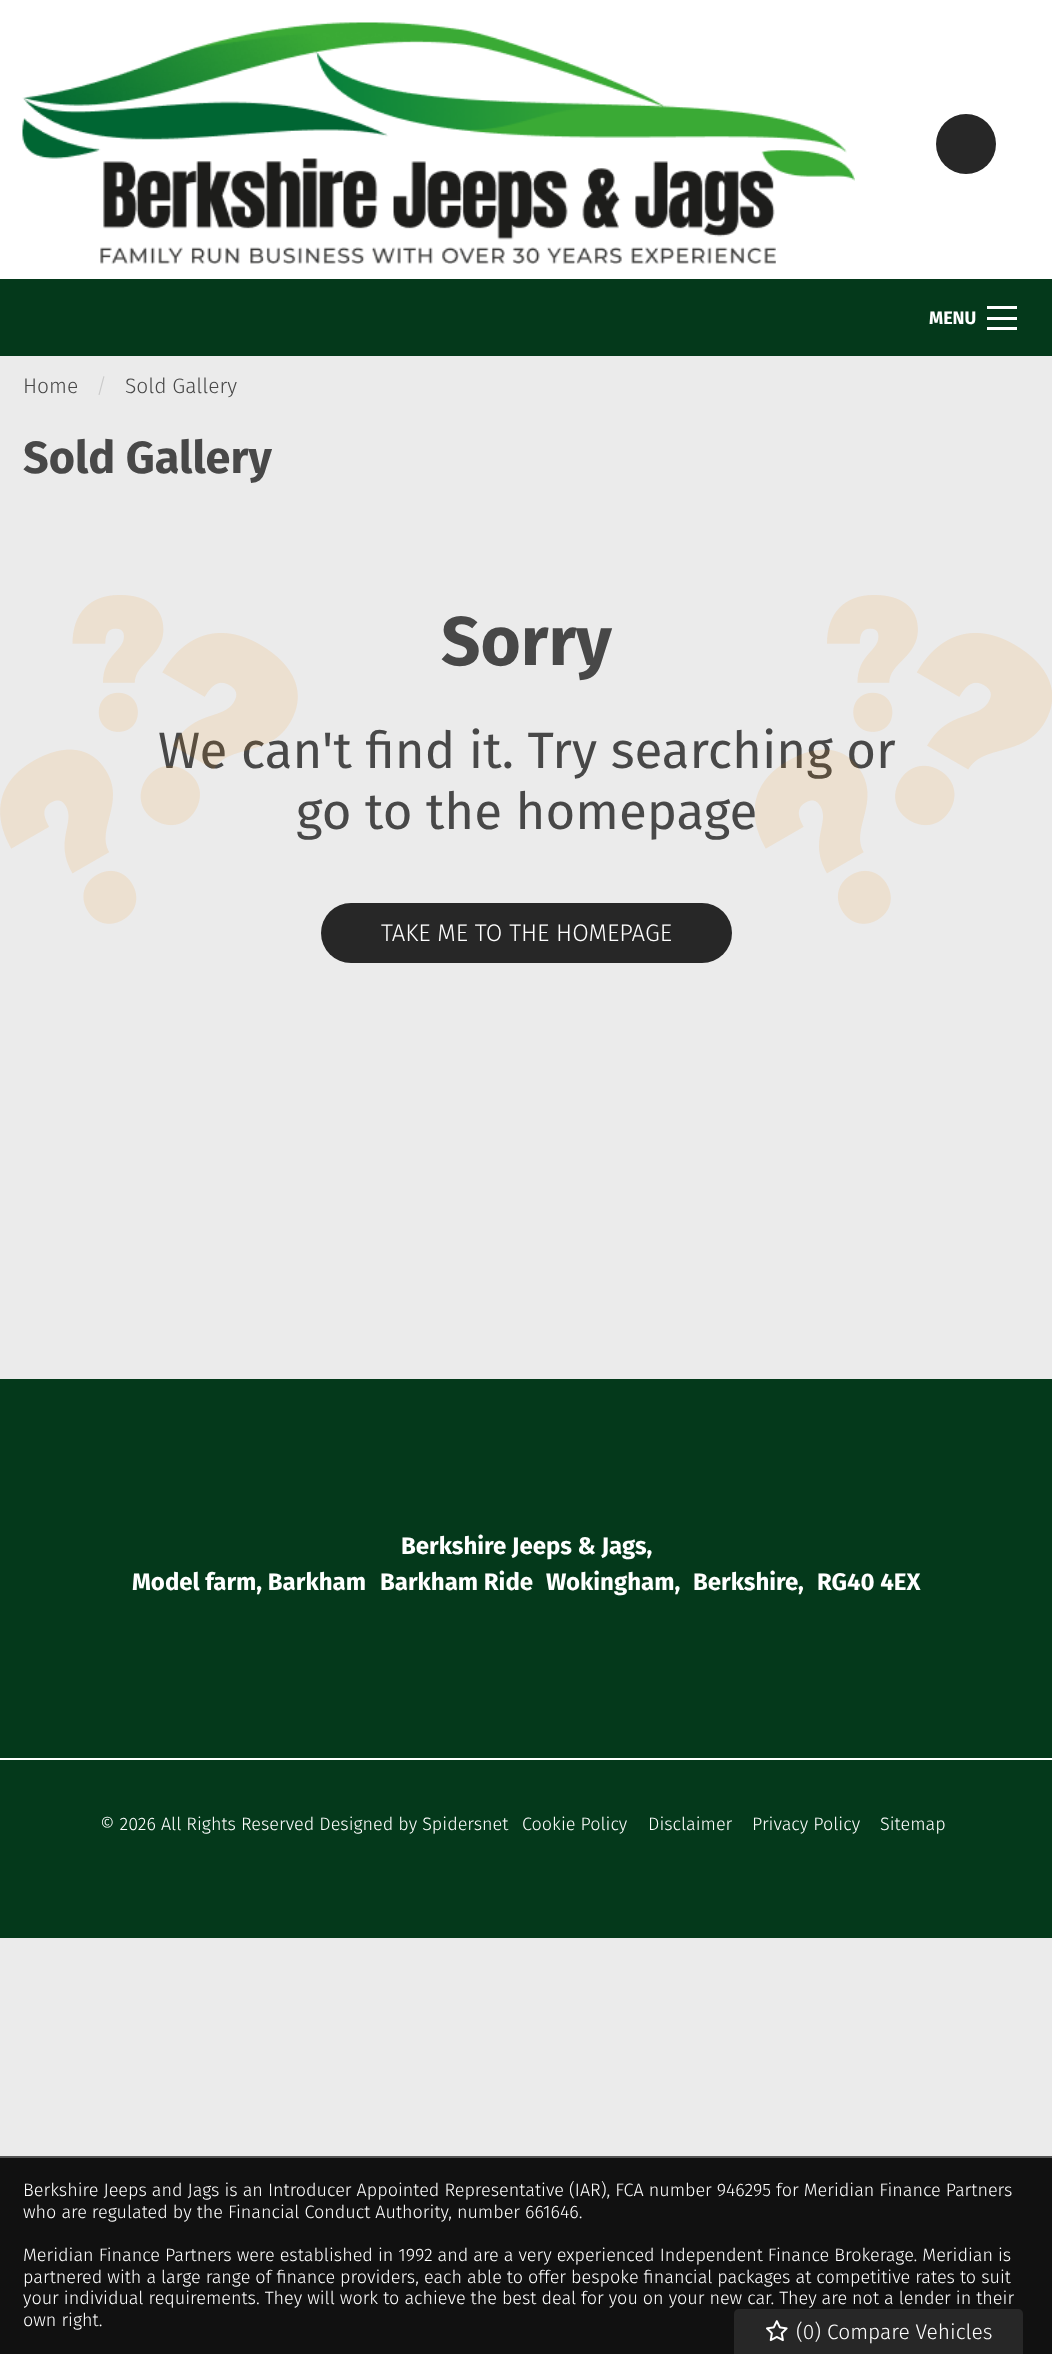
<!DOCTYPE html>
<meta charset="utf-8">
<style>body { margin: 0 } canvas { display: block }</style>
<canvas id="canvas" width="1052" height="2354"></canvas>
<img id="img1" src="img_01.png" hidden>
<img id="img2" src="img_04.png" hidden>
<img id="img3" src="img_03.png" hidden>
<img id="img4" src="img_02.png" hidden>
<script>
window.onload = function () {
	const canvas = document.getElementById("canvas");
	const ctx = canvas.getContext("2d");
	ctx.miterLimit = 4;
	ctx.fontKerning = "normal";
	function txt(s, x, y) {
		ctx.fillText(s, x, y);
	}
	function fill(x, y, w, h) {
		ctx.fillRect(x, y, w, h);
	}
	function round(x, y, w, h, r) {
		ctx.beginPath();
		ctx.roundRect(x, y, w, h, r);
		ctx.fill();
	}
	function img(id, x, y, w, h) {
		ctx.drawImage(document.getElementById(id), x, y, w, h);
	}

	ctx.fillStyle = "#EBEBEB";
	fill(0, 0, 1052, 2354);
	ctx.fillStyle = "#FFFFFF";
	fill(0, 0, 1052, 279);
	img("img1", 22, 22, 833, 242);
	ctx.fillStyle = "#272727";
	ctx.beginPath();
	ctx.arc(966, 144, 30, 0, Math.PI * 2);
	ctx.fill();
	ctx.fillStyle = "#04391B";
	fill(0, 279, 1052, 77);
	ctx.fillStyle = "#FFFFFF";
	fill(987, 327, 30, 3);
	fill(987, 317, 30, 3);
	fill(987, 306, 30, 3);
	ctx.fillStyle = "#272727";
	round(321, 903, 411, 60, 30);
	ctx.fillStyle = "#111111";
	fill(0, 2158, 1052, 196);
	ctx.fillStyle = "#272727";
	ctx.beginPath();
	ctx.moveTo(739, 2309);
	ctx.lineTo(1018, 2309);
	ctx.bezierCurveTo(1021, 2309, 1023, 2311, 1023, 2314);
	ctx.lineTo(1023, 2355);
	ctx.lineTo(734, 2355);
	ctx.lineTo(734, 2314);
	ctx.bezierCurveTo(734, 2311, 736, 2309, 739, 2309);
	ctx.closePath();
	ctx.fill();
	img("img2", 766, 2320, 22, 22);
	ctx.fillStyle = "#04391B";
	fill(0, 1379, 1052, 559);
	ctx.fillStyle = "#FFFFFF";
	fill(0, 1758, 1052, 2);
	ctx.fillStyle = "#555555";
	fill(0, 2156, 1052, 2);
	ctx.font = "bold 18px Fira Sans";
	ctx.fillStyle = "#FFFFFF";
	txt("MENU", 929, 324);
	ctx.font = "300 21px Fira Sans";
	ctx.fillStyle = "#484848";
	txt("Home", 23, 393);
	ctx.fillStyle = "#CACACA";
	txt("/", 96, 393);
	ctx.fillStyle = "#484848";
	txt("Sold Gallery", 125, 393);
	ctx.font = "bold 45px Fira Sans";
	txt("Sold Gallery", 23, 473);
	ctx.font = "bold 69px Fira Sans";
	txt("Sorry", 441, 665);
	ctx.font = "51px Fira Sans";
	txt("We can't find it. Try searching or", 158, 768);
	img("img3", 755, 595, 297, 329);
	txt("go to the homepage", 296, 829);
	img("img4", 0, 595, 298, 329);
	ctx.font = "300 24px Fira Sans";
	ctx.fillStyle = "#FFFFFF";
	txt("TAKE ME TO THE HOMEPAGE", 381, 941);
	ctx.font = "300 21px Fira Sans";
	txt("(0) Compare Vehicles", 796, 2339);
	ctx.font = "bold 24px Fira Sans";
	txt("Berkshire Jeeps & Jags,", 401, 1554);
	txt("Model farm, Barkham", 132, 1590);
	txt("Barkham Ride", 380, 1590);
	txt("Wokingham,", 546, 1590);
	txt("Berkshire,", 693, 1590);
	txt("RG40 4EX", 817, 1590);
	ctx.font = "300 18px Fira Sans";
	txt("© 2026 All Rights Reserved Designed by Spidersnet", 100, 1830);
	txt("Cookie Policy", 522, 1830);
	txt("Disclaimer", 648, 1830);
	txt("Privacy Policy", 752, 1830);
	txt("Sitemap", 880, 1830);
	txt("Berkshire Jeeps and Jags is an Introducer Appointed Representative (IAR), FCA number 946295 for Meridian Finance Partners", 23, 2196);
	txt("who are regulated by the Financial Conduct Authority, number 661646.", 23, 2218);
	txt("Meridian Finance Partners were established in 1992 and are a very experienced Independent Finance Brokerage. Meridian is", 23, 2261);
	txt("partnered with a large range of finance providers, each able to offer bespoke financial packages at competitive rates to suit", 23, 2283);
	txt("your individual requirements. They will work to achieve the best deal for you on your new car. They are not a lender in their", 23, 2304);
	txt("own right.", 23, 2326);
};
</script>
